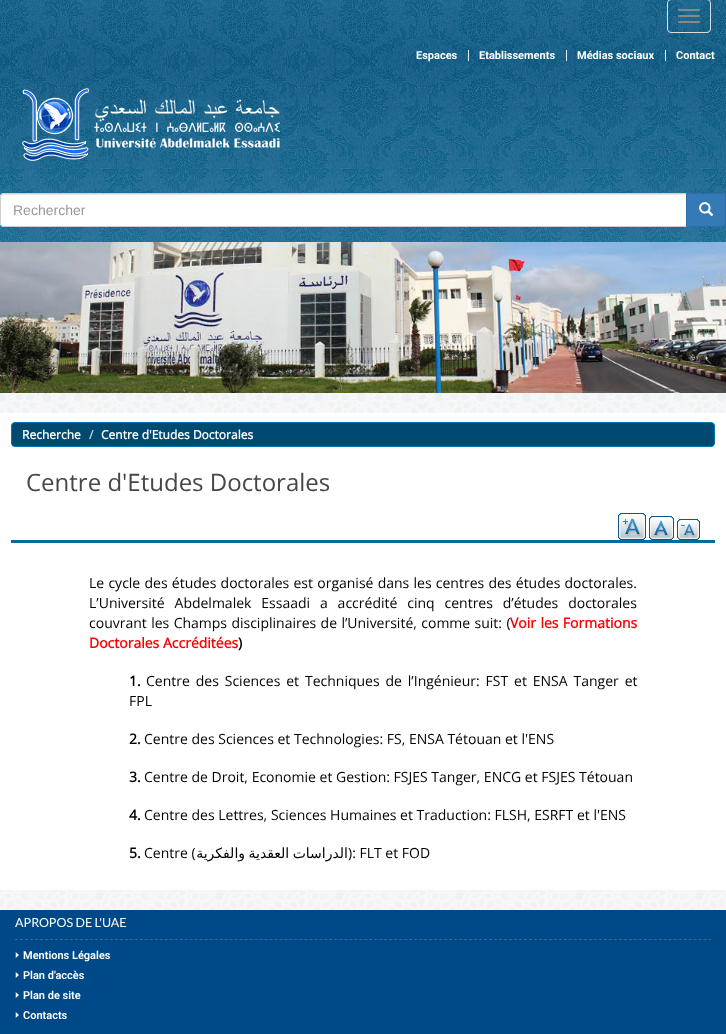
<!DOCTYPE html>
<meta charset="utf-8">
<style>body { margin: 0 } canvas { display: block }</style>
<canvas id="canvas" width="726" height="1034"></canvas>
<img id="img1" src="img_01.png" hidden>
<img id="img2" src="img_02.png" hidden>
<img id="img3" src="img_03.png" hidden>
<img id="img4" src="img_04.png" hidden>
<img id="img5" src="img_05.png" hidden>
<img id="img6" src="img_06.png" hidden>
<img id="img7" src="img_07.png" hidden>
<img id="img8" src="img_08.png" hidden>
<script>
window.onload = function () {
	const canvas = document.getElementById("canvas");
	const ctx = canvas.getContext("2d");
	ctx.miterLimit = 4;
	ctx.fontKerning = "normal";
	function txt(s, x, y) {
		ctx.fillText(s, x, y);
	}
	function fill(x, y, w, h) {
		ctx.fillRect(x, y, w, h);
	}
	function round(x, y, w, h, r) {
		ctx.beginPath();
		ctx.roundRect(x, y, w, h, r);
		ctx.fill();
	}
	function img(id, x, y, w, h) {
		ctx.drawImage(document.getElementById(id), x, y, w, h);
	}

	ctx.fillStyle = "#FFFFFF";
	fill(0, 0, 726, 1034);
	img("img1", 0, 0, 726, 910);
	ctx.beginPath();
	ctx.roundRect(667.5, -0.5, 43, 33, 3.5);
	ctx.strokeStyle = "#DDDDDD";
	ctx.stroke();
	ctx.fillStyle = "#888888";
	round(678, 9, 22, 2, 1);
	round(678, 15, 22, 2, 1);
	round(678, 21, 22, 2, 1);
	ctx.fillStyle = "#E2ECF1";
	fill(468, 50, 1, 11);
	fill(566, 50, 1, 11);
	fill(665, 50, 1, 11);
	img("img2", 22, 88, 258, 73);
	ctx.fillStyle = "#FFFFFF";
	ctx.beginPath();
	ctx.roundRect(0, 193, 687, 34, [4, 0, 0, 4]);
	ctx.fill();
	ctx.fillStyle = "#ECECEC";
	ctx.beginPath();
	ctx.moveTo(4, 195);
	ctx.lineTo(686, 195);
	ctx.lineTo(686, 194);
	ctx.lineTo(4, 194);
	ctx.bezierCurveTo(2, 194, 1, 195, 1, 197);
	ctx.lineTo(1, 198);
	ctx.bezierCurveTo(1, 196, 2, 195, 4, 195);
	ctx.closePath();
	ctx.fill();
	ctx.beginPath();
	ctx.roundRect(0.5, 193.5, 686, 33, [3.5, 0, 0, 3.5]);
	ctx.strokeStyle = "#CCCCCC";
	ctx.stroke();
	ctx.fillStyle = "#337AB7";
	ctx.beginPath();
	ctx.roundRect(686.5, 193.5, 39, 33, [0, 3.5, 3.5, 0]);
	ctx.fill();
	ctx.strokeStyle = "#2E6DA4";
	ctx.stroke();
	img("img3", 699, 202, 15, 14);
	img("img4", 0, 242, 726, 151);
	ctx.fillStyle = "#FFFFFF";
	fill(0, 413, 726, 477);
	ctx.fillStyle = "#004A72";
	ctx.beginPath();
	ctx.roundRect(11.5, 422.5, 703, 24, 3.5);
	ctx.fill();
	ctx.strokeStyle = "#0074B3";
	ctx.stroke();
	ctx.fillStyle = "#006C9E";
	fill(11, 540, 704, 3);
	img("img5", 618, 513, 28, 27);
	img("img6", 649, 516, 25, 24);
	img("img7", 677, 519, 23, 21);
	ctx.fillStyle = "#004989";
	fill(0, 910, 726, 124);
	ctx.beginPath();
	ctx.moveTo(15, 939.5);
	ctx.lineTo(711, 939.5);
	ctx.strokeStyle = "#376A87";
	ctx.setLineDash([3, 1.99]);
	ctx.stroke();
	img("img8", 15, 952, 4, 6);
	img("img8", 15, 972, 4, 6);
	img("img8", 15, 992, 4, 6);
	img("img8", 15, 1012, 4, 6);
	ctx.font = "bold 11px Roboto";
	ctx.fillStyle = "#FFFFFF";
	txt("Espaces", 416, 59);
	txt("Etablissements", 479, 59);
	txt("Médias sociaux", 577, 59);
	txt("Contact", 676, 59);
	ctx.font = "14px Liberation Sans";
	ctx.fillStyle = "#999999";
	txt("Rechercher", 13, 215);
	ctx.font = "bold 12px Open Sans";
	ctx.fillStyle = "#FFFFFF";
	txt("Recherche", 22, 439);
	ctx.fillStyle = "#CCCCCC";
	txt("/", 89, 439);
	ctx.fillStyle = "#FFFFFF";
	txt("Centre d'Etudes Doctorales", 101, 439);
	ctx.font = "24px Open Sans";
	ctx.fillStyle = "#474747";
	txt("Centre d'Etudes Doctorales", 26, 491);
	ctx.wordSpacing = "0.6px";
	ctx.font = "14px Open Sans";
	ctx.fillStyle = "#000000";
	txt("Le cycle des études doctorales est organisé dans les centres des études doctorales.", 89, 588);
	ctx.wordSpacing = "6.25px";
	txt("L’Université Abdelmalek Essaadi a accrédité cinq centres d’études doctorales", 89, 608);
	ctx.wordSpacing = "0.75px";
	txt("couvrant les Champs disciplinaires de l’Université, comme suit: (", 89, 628);
	ctx.font = "bold 14px Open Sans";
	ctx.fillStyle = "#FF0000";
	txt("Voir les Formations", 510, 628);
	ctx.wordSpacing = "0px";
	txt("Doctorales Accréditées", 89, 648);
	ctx.fillStyle = "#000000";
	txt(")", 238, 648);
	txt("1.", 129, 686);
	ctx.wordSpacing = "2.25px";
	ctx.font = "14px Open Sans";
	txt("Centre des Sciences et Techniques de l’Ingénieur: FST et ENSA Tanger et", 146, 686);
	ctx.wordSpacing = "0px";
	txt("FPL", 129, 706);
	ctx.font = "bold 14px Open Sans";
	txt("2.", 129, 744);
	ctx.font = "14px Open Sans";
	txt("Centre des Sciences et Technologies: FS, ENSA Tétouan et l'ENS", 144, 744);
	ctx.font = "bold 14px Open Sans";
	txt("3.", 129, 782);
	ctx.font = "14px Open Sans";
	txt("Centre de Droit, Economie et Gestion: FSJES Tanger, ENCG et FSJES Tétouan", 144, 782);
	ctx.font = "bold 14px Open Sans";
	txt("4.", 129, 820);
	ctx.font = "14px Open Sans";
	txt("Centre des Lettres, Sciences Humaines et Traduction: FLSH, ESRFT et l'ENS", 144, 820);
	ctx.font = "bold 14px Open Sans";
	txt("5.", 129, 858);
	ctx.font = "14px Open Sans";
	txt("Centre (", 144, 858);
	ctx.wordSpacing = "-1px";
	ctx.direction = "rtl";
	ctx.font = "14px DejaVu Sans";
	txt("الدراسات العقدية والفكرية", 348, 858);
	ctx.wordSpacing = "0px";
	ctx.direction = "ltr";
	ctx.font = "14px Open Sans";
	txt("): FLT et FOD", 348, 858);
	ctx.font = "12.5px Lato";
	ctx.fillStyle = "#FFFFFF";
	txt("APROPOS DE L'UAE", 15, 927);
	ctx.font = "600 11px Roboto";
	txt("Mentions Légales", 23, 959);
	txt("Plan d'accès", 23, 979);
	txt("Plan de site", 23, 999);
	txt("Contacts", 23, 1019);
};
</script>
